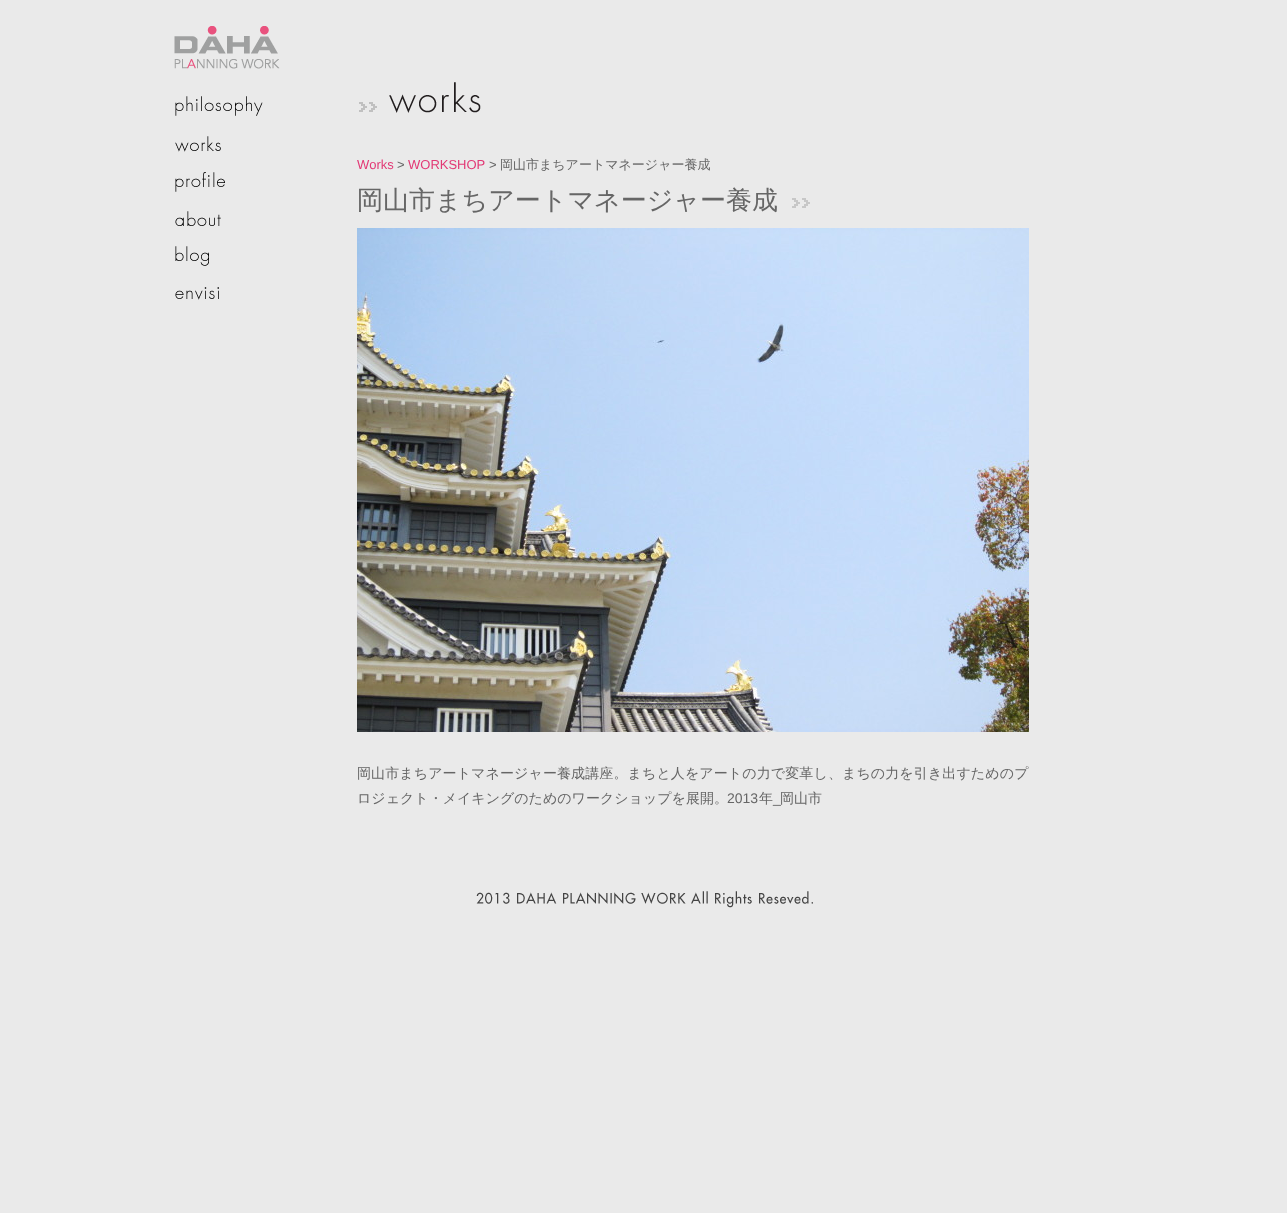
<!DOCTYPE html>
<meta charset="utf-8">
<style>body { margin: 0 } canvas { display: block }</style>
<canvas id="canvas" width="1287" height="1213"></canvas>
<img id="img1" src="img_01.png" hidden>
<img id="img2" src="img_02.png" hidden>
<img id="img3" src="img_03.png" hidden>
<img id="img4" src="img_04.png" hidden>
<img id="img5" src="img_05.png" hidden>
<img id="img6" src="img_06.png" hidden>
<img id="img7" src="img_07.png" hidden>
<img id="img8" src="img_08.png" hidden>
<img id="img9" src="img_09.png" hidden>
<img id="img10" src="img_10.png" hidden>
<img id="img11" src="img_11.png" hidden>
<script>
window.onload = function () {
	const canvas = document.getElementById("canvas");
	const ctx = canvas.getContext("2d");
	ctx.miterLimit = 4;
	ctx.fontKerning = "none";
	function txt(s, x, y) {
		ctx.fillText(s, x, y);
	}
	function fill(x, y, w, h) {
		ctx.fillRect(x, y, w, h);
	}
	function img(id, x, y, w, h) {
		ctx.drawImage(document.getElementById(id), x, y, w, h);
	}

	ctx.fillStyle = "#EAEAEA";
	fill(0, 0, 1287, 1213);
	img("img1", 174, 26, 106, 43);
	img("img2", 175, 96, 88, 20);
	img("img3", 175, 136, 46, 16);
	img("img4", 175, 172, 50, 20);
	img("img5", 175, 211, 46, 15);
	img("img6", 175, 246, 34, 20);
	img("img7", 175, 287, 44, 13);
	img("img8", 359, 82, 122, 31);
	img("img9", 792, 198, 18, 10);
	img("img10", 357, 228, 672, 504);
	img("img11", 476, 891, 337, 17);
	ctx.font = "13px Liberation Sans";
	ctx.fillStyle = "#E23975";
	txt("Works", 357, 169);
	ctx.fillStyle = "#666666";
	txt(">", 397, 169);
	ctx.fillStyle = "#E23975";
	txt("WORKSHOP", 408, 169);
	ctx.fillStyle = "#666666";
	txt(">", 489, 169);
	ctx.font = "500 13px WenQuanYi Zen Hei";
	txt("岡山市まちアートマネージャー養成", 500, 169);
	ctx.font = "500 26px WenQuanYi Zen Hei";
	txt("岡山市まちアートマネージャー養成", 357, 209);
	ctx.letterSpacing = "0.1px";
	ctx.font = "500 14px WenQuanYi Zen Hei";
	txt("岡山市まちアートマネージャー養成講座。まちと人をアートの力で変革し、まちの力を引き出すためのプ", 357, 778);
	ctx.letterSpacing = "0px";
	txt("ロジェクト・メイキングのためのワークショップを展開。", 357, 803);
	ctx.font = "14px Liberation Sans";
	txt("2013", 727, 803);
	ctx.font = "500 14px WenQuanYi Zen Hei";
	txt("年", 759, 803);
	txt("岡山市", 780, 803);
	ctx.font = "14px Liberation Sans";
	txt("_", 773, 803);
};
</script>
